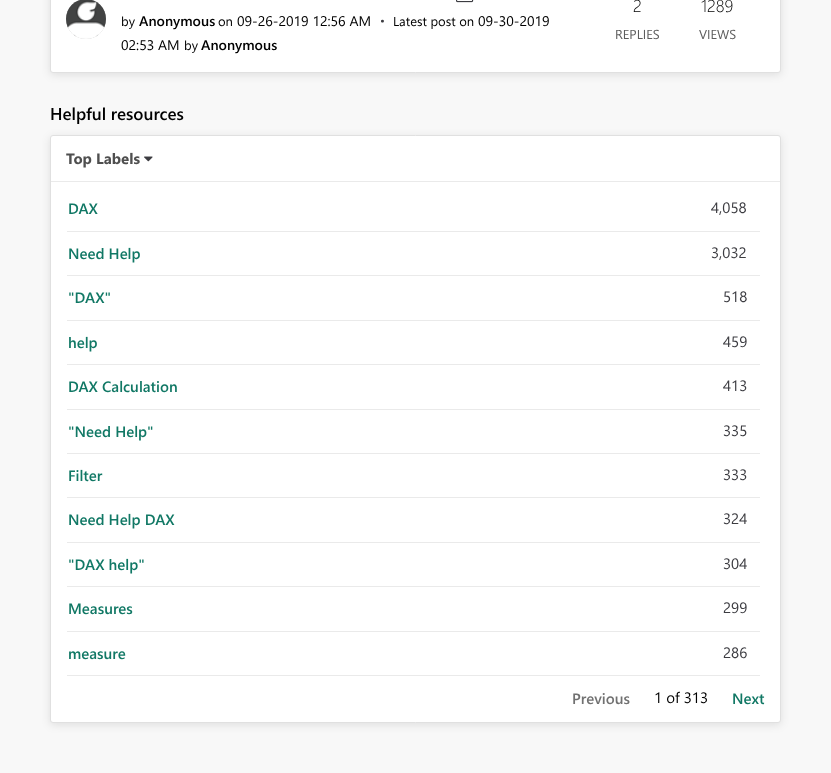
<!DOCTYPE html>
<meta charset="utf-8">
<style>body { margin: 0 } canvas { display: block }</style>
<canvas id="canvas" width="831" height="773"></canvas>
<img id="img1" src="img_01.png" hidden>
<img id="img2" src="img_02.png" hidden>
<img id="img3" src="img_03.png" hidden>
<script>
window.onload = function () {
	const canvas = document.getElementById("canvas");
	const ctx = canvas.getContext("2d");
	ctx.miterLimit = 4;
	ctx.fontKerning = "normal";
	function txt(s, x, y) {
		ctx.fillText(s, x, y);
	}
	function fill(x, y, w, h) {
		ctx.fillRect(x, y, w, h);
	}
	function img(id, x, y, w, h) {
		ctx.drawImage(document.getElementById(id), x, y, w, h);
	}

	ctx.fillStyle = "#F8F8F8";
	fill(0, 0, 831, 773);
	ctx.fillStyle = "rgba(0, 0, 0, 0.1)";
	ctx.filter = "blur(4px)";
	ctx.beginPath();
	ctx.roundRect(50, -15, 731, 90, 3);
	ctx.fill();
	ctx.filter = "none";
	ctx.fillStyle = "#FFFFFF";
	ctx.beginPath();
	ctx.roundRect(50.5, -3.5, 730, 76, 2.5);
	ctx.fill();
	ctx.strokeStyle = "#E0E0E0";
	ctx.stroke();
	ctx.fillStyle = "#C4C4C4";
	ctx.filter = "blur(0.5px)";
	ctx.beginPath();
	ctx.roundRect(66, -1, 40, 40, 20);
	ctx.fill();
	ctx.filter = "none";
	img("img1", 66, 0, 40, 39);
	img("img2", 456, 0, 18, 3);
	ctx.fillStyle = "rgba(0, 0, 0, 0.1)";
	ctx.filter = "blur(4px)";
	ctx.beginPath();
	ctx.roundRect(50, 137, 731, 588, 3);
	ctx.fill();
	ctx.filter = "none";
	ctx.fillStyle = "#FFFFFF";
	ctx.beginPath();
	ctx.roundRect(50.5, 135.5, 730, 587, 2.5);
	ctx.fill();
	ctx.stroke();
	ctx.fillStyle = "#EAEAEA";
	fill(51, 181, 729, 1);
	img("img3", 144, 156, 9, 6);
	fill(67, 231, 693, 1);
	fill(67, 275, 693, 1);
	fill(67, 320, 693, 1);
	fill(67, 364, 693, 1);
	fill(67, 409, 693, 1);
	fill(67, 453, 693, 1);
	fill(67, 497, 693, 1);
	fill(67, 542, 693, 1);
	fill(67, 586, 693, 1);
	fill(67, 631, 693, 1);
	fill(67, 675, 693, 1);
	ctx.font = "13px Segoe UI";
	ctx.fillStyle = "#000000";
	txt("by", 121, 26);
	ctx.font = "600 14px Segoe UI";
	txt("Anonymous", 139, 26);
	ctx.font = "13px Segoe UI";
	txt("on", 218, 26);
	ctx.font = "14px Segoe UI";
	txt("09-26-2019 12:56 AM", 237, 26);
	ctx.font = "12px Segoe UI";
	ctx.fillStyle = "#3C3C41";
	txt("•", 380, 25);
	ctx.font = "13px Segoe UI";
	ctx.fillStyle = "#000000";
	txt("Latest post on", 393, 26);
	ctx.font = "14px Segoe UI";
	txt("09-30-2019", 478, 26);
	txt("02:53 AM", 121, 50);
	ctx.font = "13px Segoe UI";
	txt("by", 184, 50);
	ctx.font = "600 14px Segoe UI";
	txt("Anonymous", 201, 50);
	ctx.font = "300 17px Segoe UI";
	txt("2", 633, 12);
	ctx.font = "13px Segoe UI";
	ctx.fillStyle = "#5D5D5D";
	txt("REPLIES", 615, 39);
	ctx.font = "300 17px Segoe UI";
	ctx.fillStyle = "#000000";
	txt("1289", 701, 12);
	ctx.font = "13px Segoe UI";
	ctx.fillStyle = "#5D5D5D";
	txt("VIEWS", 699, 39);
	ctx.font = "600 17px Segoe UI";
	ctx.fillStyle = "#000000";
	txt("Helpful resources", 50, 120);
	ctx.font = "bold 15px Segoe UI";
	ctx.fillStyle = "#4F4F4F";
	txt("Top Labels", 66, 164);
	ctx.font = "600 15px Segoe UI";
	ctx.fillStyle = "#117865";
	txt("DAX", 68, 214);
	ctx.font = "15px Segoe UI";
	ctx.fillStyle = "#3C3C41";
	txt("4,058", 711, 213);
	ctx.font = "600 15px Segoe UI";
	ctx.fillStyle = "#117865";
	txt("Need Help", 68, 259);
	ctx.font = "15px Segoe UI";
	ctx.fillStyle = "#3C3C41";
	txt("3,032", 711, 258);
	ctx.font = "600 15px Segoe UI";
	ctx.fillStyle = "#117865";
	txt("\"DAX\"", 68, 303);
	ctx.font = "15px Segoe UI";
	ctx.fillStyle = "#3C3C41";
	txt("518", 723, 302);
	ctx.font = "600 15px Segoe UI";
	ctx.fillStyle = "#117865";
	txt("help", 68, 348);
	ctx.font = "15px Segoe UI";
	ctx.fillStyle = "#3C3C41";
	txt("459", 723, 347);
	ctx.font = "600 15px Segoe UI";
	ctx.fillStyle = "#117865";
	txt("DAX Calculation", 68, 392);
	ctx.font = "15px Segoe UI";
	ctx.fillStyle = "#3C3C41";
	txt("413", 723, 391);
	ctx.font = "600 15px Segoe UI";
	ctx.fillStyle = "#117865";
	txt("\"Need Help\"", 68, 437);
	ctx.font = "15px Segoe UI";
	ctx.fillStyle = "#3C3C41";
	txt("335", 723, 436);
	ctx.font = "600 15px Segoe UI";
	ctx.fillStyle = "#117865";
	txt("Filter", 68, 481);
	ctx.font = "15px Segoe UI";
	ctx.fillStyle = "#3C3C41";
	txt("333", 723, 480);
	ctx.font = "600 15px Segoe UI";
	ctx.fillStyle = "#117865";
	txt("Need Help DAX", 68, 525);
	ctx.font = "15px Segoe UI";
	ctx.fillStyle = "#3C3C41";
	txt("324", 723, 524);
	ctx.font = "600 15px Segoe UI";
	ctx.fillStyle = "#117865";
	txt("\"DAX help\"", 68, 570);
	ctx.font = "15px Segoe UI";
	ctx.fillStyle = "#3C3C41";
	txt("304", 723, 569);
	ctx.font = "600 15px Segoe UI";
	ctx.fillStyle = "#117865";
	txt("Measures", 68, 614);
	ctx.font = "15px Segoe UI";
	ctx.fillStyle = "#3C3C41";
	txt("299", 723, 613);
	ctx.font = "600 15px Segoe UI";
	ctx.fillStyle = "#117865";
	txt("measure", 68, 659);
	ctx.font = "15px Segoe UI";
	ctx.fillStyle = "#3C3C41";
	txt("286", 723, 658);
	ctx.font = "600 15px Segoe UI";
	ctx.fillStyle = "#717171";
	txt("Previous", 572, 704);
	ctx.font = "15px Segoe UI";
	ctx.fillStyle = "#000000";
	txt("1 of 313", 654, 703);
	ctx.font = "600 15px Segoe UI";
	ctx.fillStyle = "#117865";
	txt("Next", 732, 704);
};
</script>
